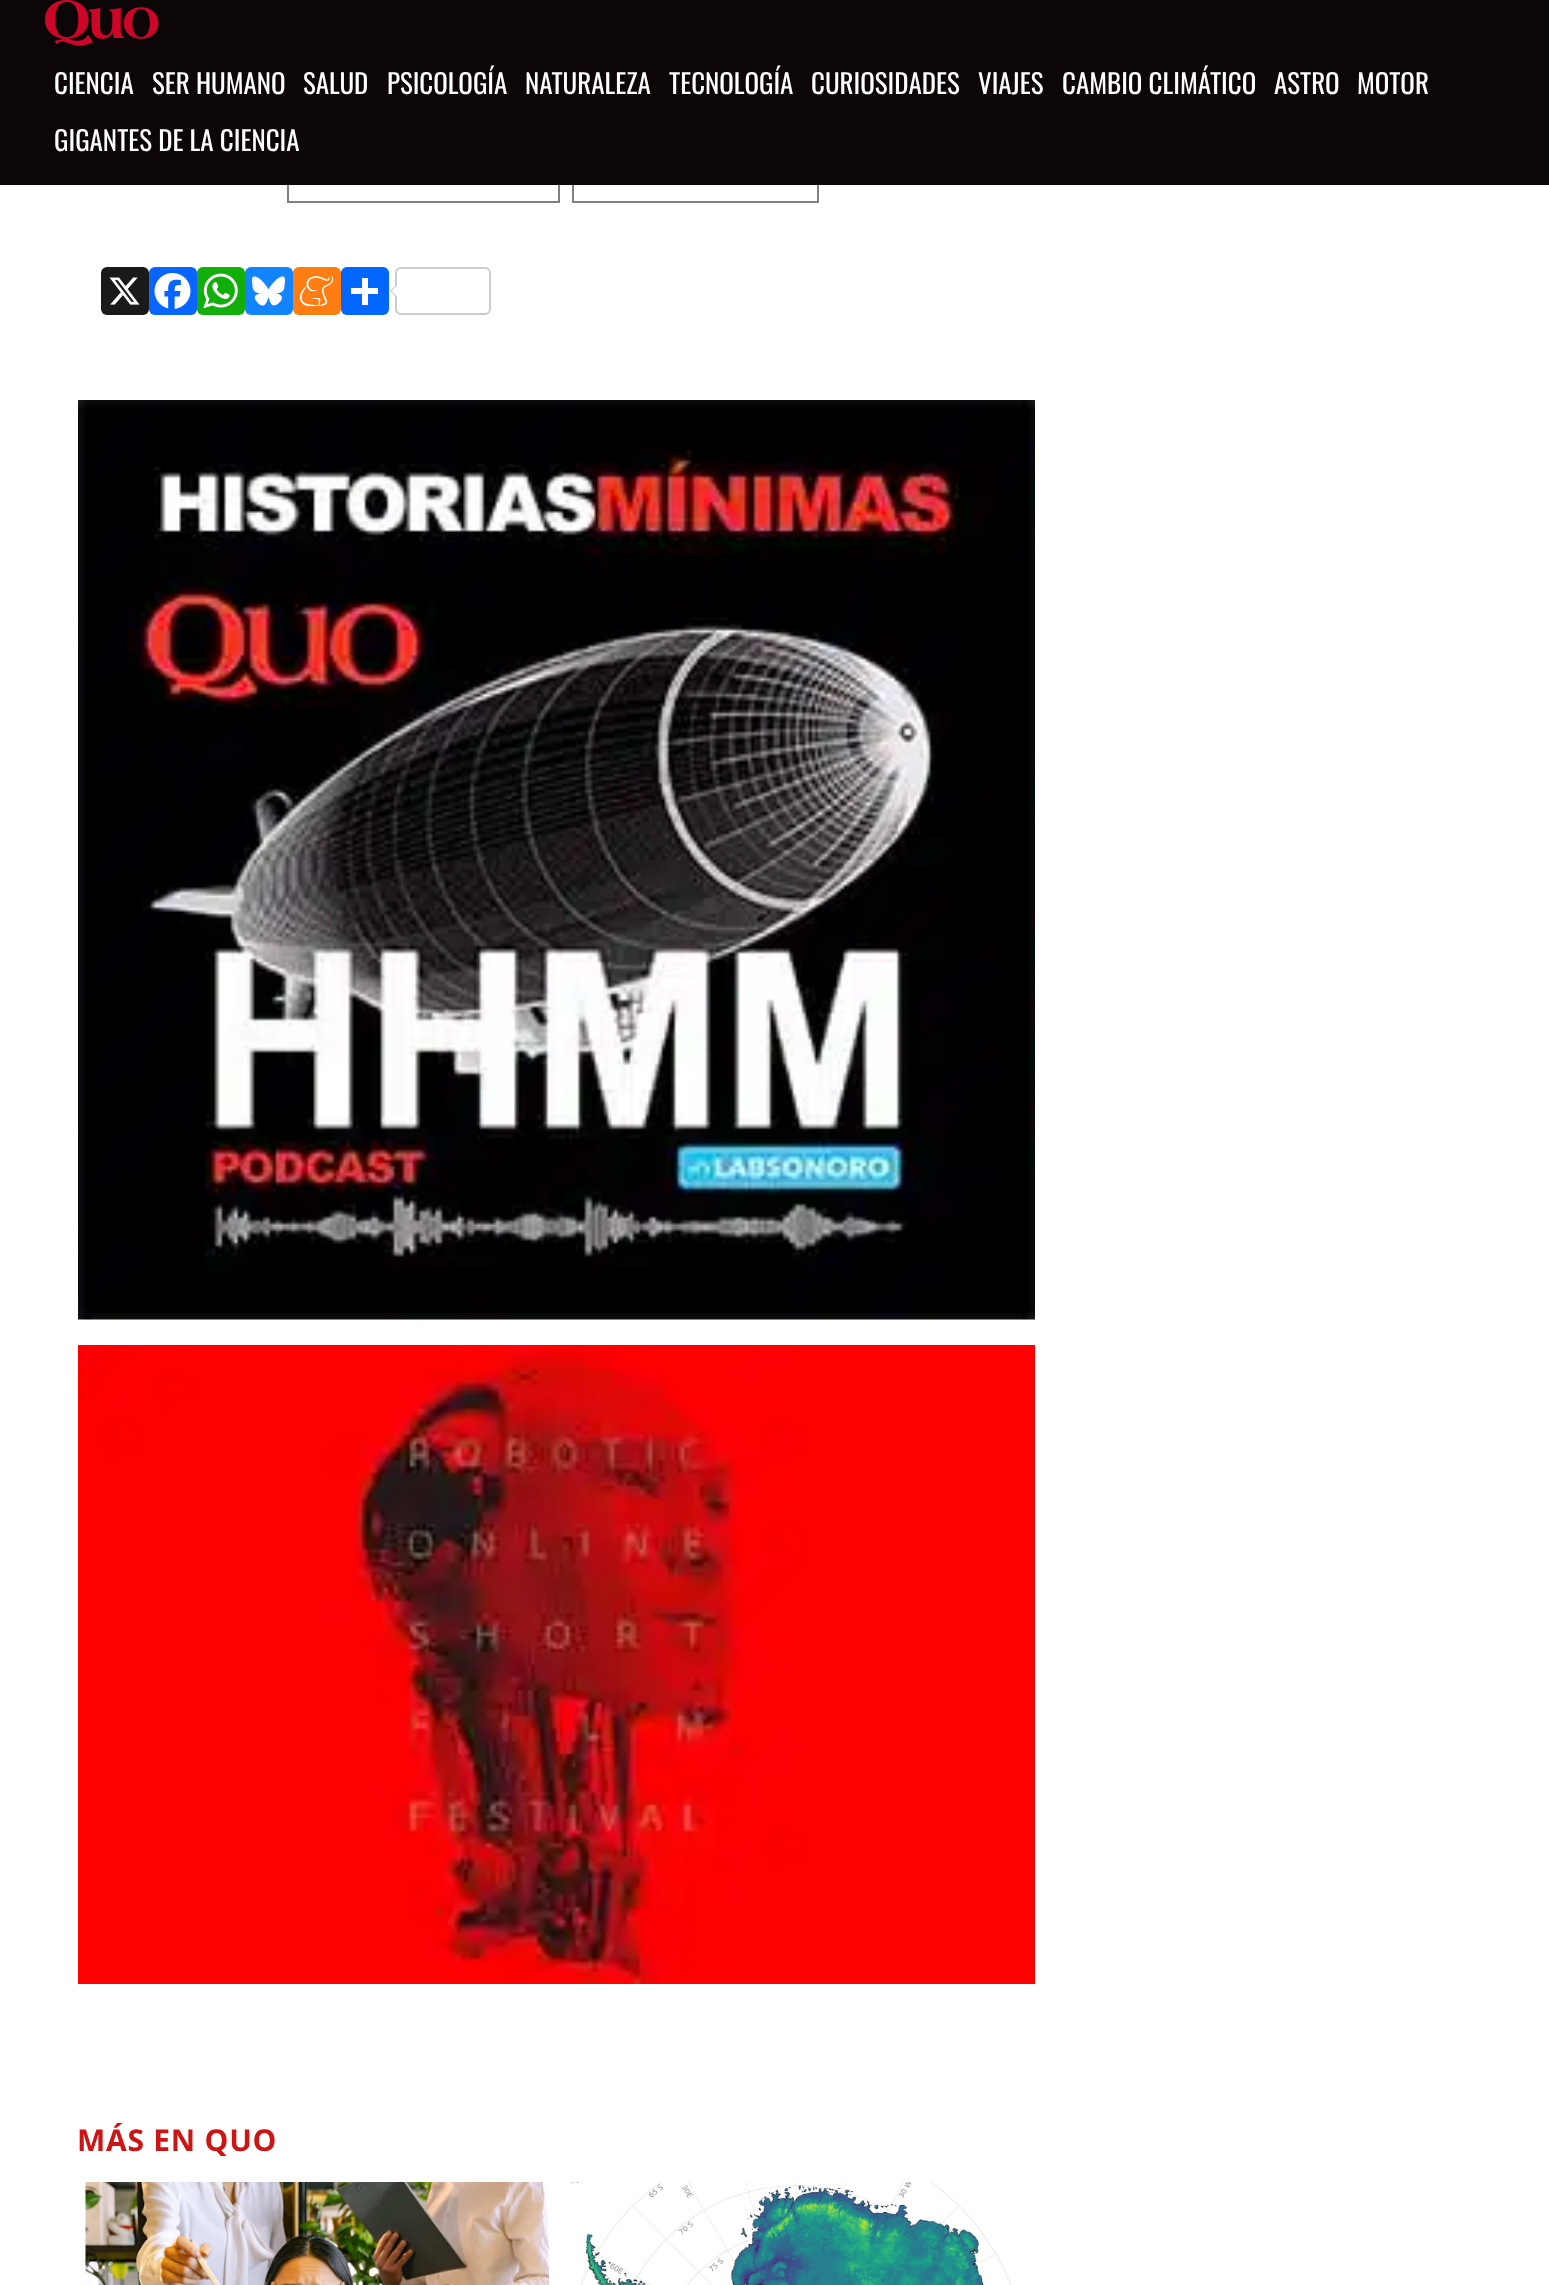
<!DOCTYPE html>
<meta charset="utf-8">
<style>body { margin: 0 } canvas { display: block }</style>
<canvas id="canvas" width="1549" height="2285"></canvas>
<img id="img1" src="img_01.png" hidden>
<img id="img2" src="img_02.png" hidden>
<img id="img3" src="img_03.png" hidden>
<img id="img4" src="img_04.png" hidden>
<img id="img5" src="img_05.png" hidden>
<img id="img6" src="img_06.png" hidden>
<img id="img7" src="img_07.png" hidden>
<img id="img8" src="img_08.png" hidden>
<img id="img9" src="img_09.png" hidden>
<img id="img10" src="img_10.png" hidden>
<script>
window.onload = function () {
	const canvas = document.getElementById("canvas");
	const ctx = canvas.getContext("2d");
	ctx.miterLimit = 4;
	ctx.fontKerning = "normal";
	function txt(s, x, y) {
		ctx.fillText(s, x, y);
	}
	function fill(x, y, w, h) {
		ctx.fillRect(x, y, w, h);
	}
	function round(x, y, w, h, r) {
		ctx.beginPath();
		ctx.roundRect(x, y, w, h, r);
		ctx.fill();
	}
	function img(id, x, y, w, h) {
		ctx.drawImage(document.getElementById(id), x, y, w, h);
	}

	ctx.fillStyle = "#FFFFFF";
	fill(0, 0, 1549, 2285);
	ctx.strokeStyle = "#818080";
	ctx.lineWidth = 2;
	ctx.strokeRect(288, 160, 271, 42);
	ctx.strokeRect(573, 160, 245, 42);
	ctx.fillStyle = "#0C0606";
	fill(0, 0, 1549, 185);
	img("img1", 45, 0, 114, 46);
	ctx.fillStyle = "#1A1A1A";
	round(101, 267, 48, 48, 6);
	img("img2", 109, 277, 31, 28);
	ctx.fillStyle = "#0866FF";
	round(149, 267, 48, 48, 6);
	img("img3", 154, 273, 37, 36);
	ctx.fillStyle = "#12AF0A";
	round(197, 267, 48, 48, 6);
	img("img4", 203, 273, 35, 36);
	ctx.fillStyle = "#1285FE";
	round(245, 267, 48, 48, 6);
	img("img5", 252, 276, 33, 30);
	ctx.fillStyle = "#FF7D12";
	round(293, 267, 48, 48, 6);
	img("img6", 299, 275, 35, 32);
	ctx.fillStyle = "#0166FF";
	round(341, 267, 48, 48, 6);
	ctx.fillStyle = "#FFFFFF";
	fill(362, 278, 6, 27);
	fill(351, 288, 27, 6);
	ctx.beginPath();
	ctx.roundRect(396, 268, 94, 46, 5);
	ctx.strokeStyle = "#CCCCCC";
	ctx.stroke();
	ctx.fillStyle = "#CCCCCC";
	ctx.beginPath();
	ctx.moveTo(396, 285);
	ctx.lineTo(396, 297);
	ctx.lineTo(390, 291);
	ctx.closePath();
	ctx.fill();
	ctx.fillStyle = "#FFFFFF";
	ctx.beginPath();
	ctx.moveTo(397.5, 285);
	ctx.lineTo(397.5, 297);
	ctx.lineTo(391.5, 291);
	ctx.closePath();
	ctx.fill();
	img("img7", 78, 400, 957, 920);
	img("img8", 78, 1345, 957, 639);
	img("img9", 85, 2182, 464, 103);
	img("img10", 571, 2182, 440, 103);
	ctx.font = "27px Oswald";
	txt("CIENCIA", 54, 94);
	txt("SER HUMANO", 152, 94);
	txt("SALUD", 303, 94);
	txt("PSICOLOGÍA", 387, 94);
	txt("NATURALEZA", 525, 94);
	txt("TECNOLOGÍA", 669, 94);
	txt("CURIOSIDADES", 811, 94);
	txt("VIAJES", 978, 94);
	txt("CAMBIO CLIMÁTICO", 1062, 94);
	txt("ASTRO", 1274, 94);
	txt("MOTOR", 1357, 94);
	txt("GIGANTES DE LA CIENCIA", 54, 151);
	ctx.letterSpacing = "0.75px";
	ctx.font = "bold 30px Open Sans";
	ctx.fillStyle = "#CC1515";
	txt("MÁS EN QUO", 77, 2151);
};
</script>
